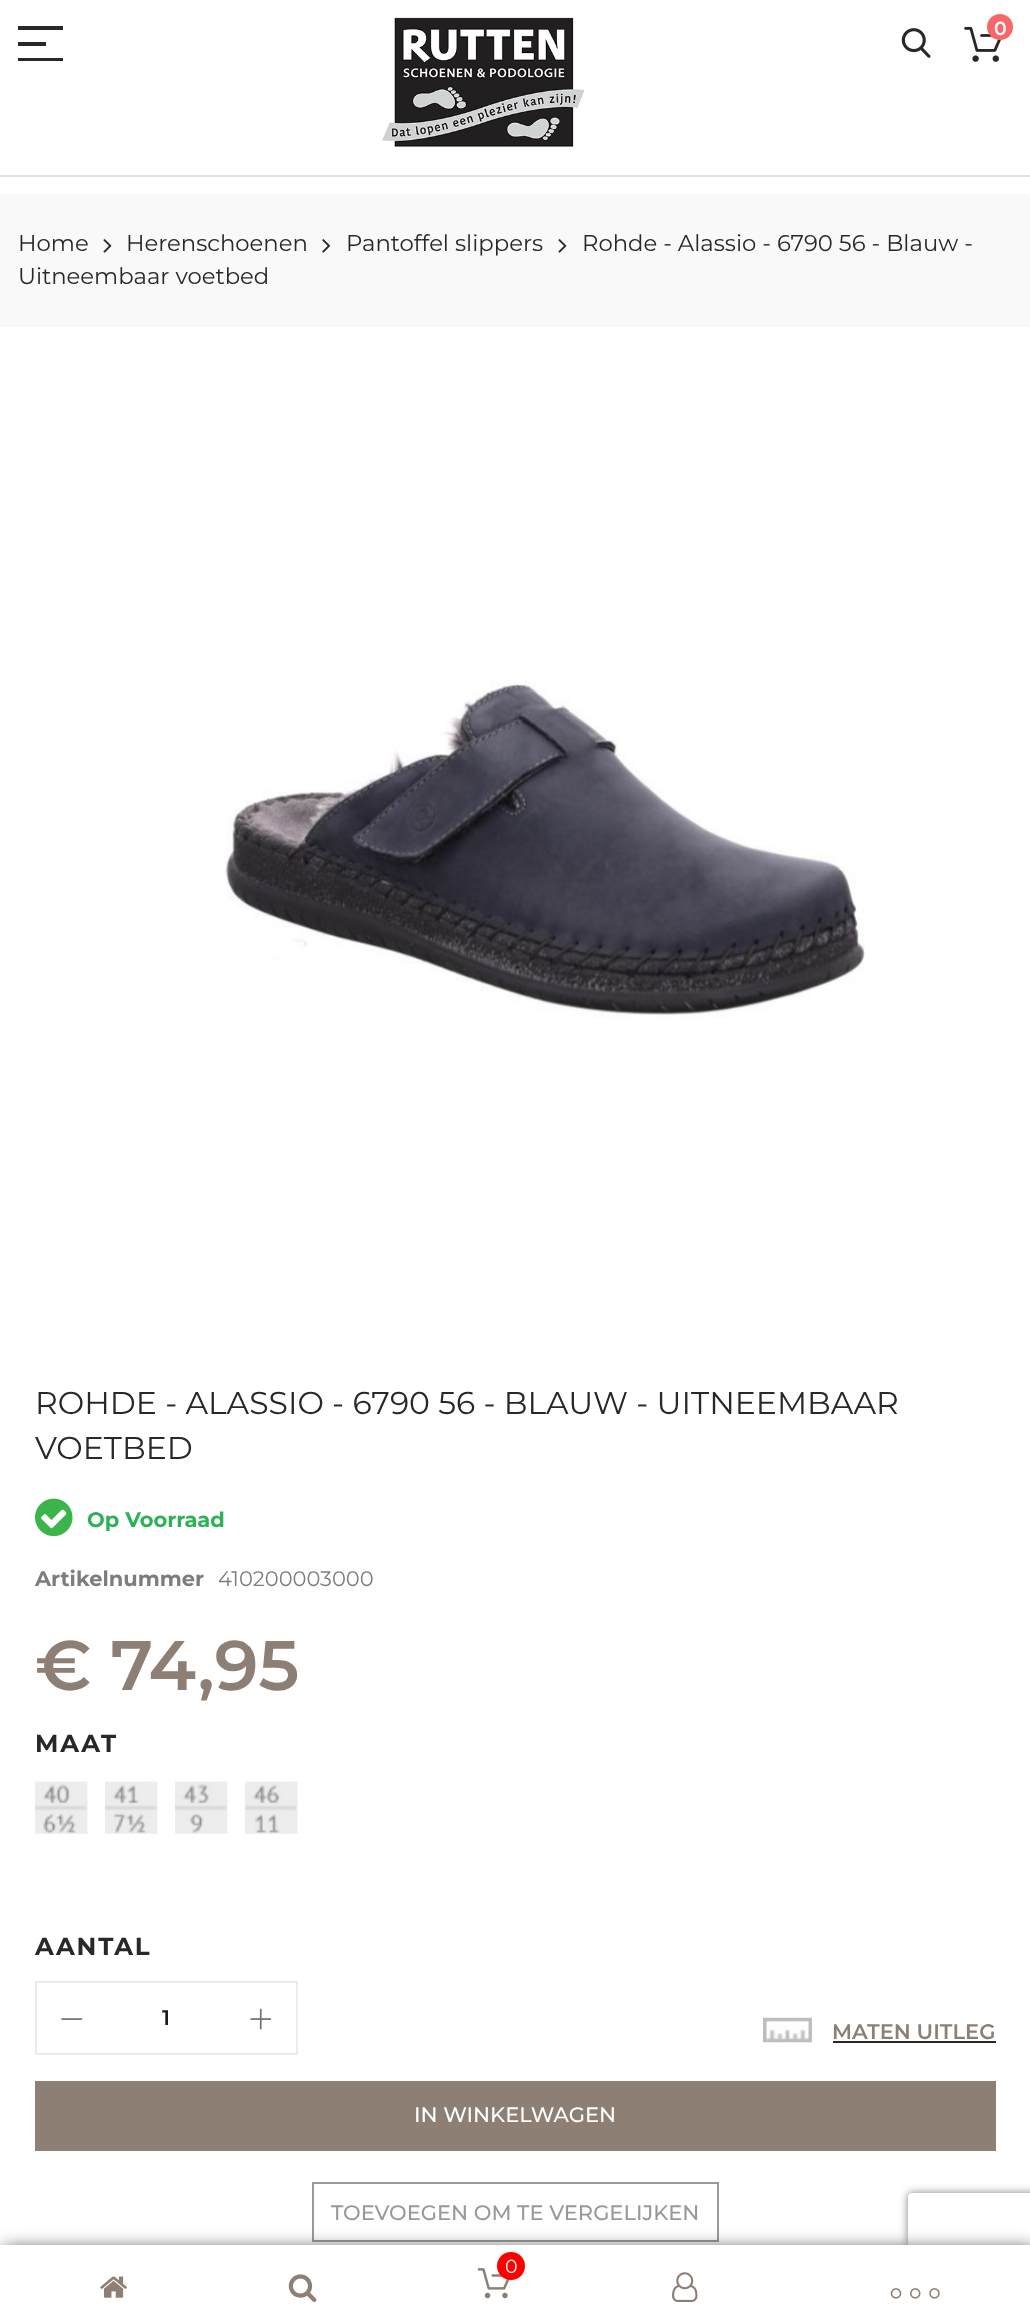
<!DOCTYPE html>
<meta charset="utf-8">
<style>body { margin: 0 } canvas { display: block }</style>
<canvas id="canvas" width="1030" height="2321"></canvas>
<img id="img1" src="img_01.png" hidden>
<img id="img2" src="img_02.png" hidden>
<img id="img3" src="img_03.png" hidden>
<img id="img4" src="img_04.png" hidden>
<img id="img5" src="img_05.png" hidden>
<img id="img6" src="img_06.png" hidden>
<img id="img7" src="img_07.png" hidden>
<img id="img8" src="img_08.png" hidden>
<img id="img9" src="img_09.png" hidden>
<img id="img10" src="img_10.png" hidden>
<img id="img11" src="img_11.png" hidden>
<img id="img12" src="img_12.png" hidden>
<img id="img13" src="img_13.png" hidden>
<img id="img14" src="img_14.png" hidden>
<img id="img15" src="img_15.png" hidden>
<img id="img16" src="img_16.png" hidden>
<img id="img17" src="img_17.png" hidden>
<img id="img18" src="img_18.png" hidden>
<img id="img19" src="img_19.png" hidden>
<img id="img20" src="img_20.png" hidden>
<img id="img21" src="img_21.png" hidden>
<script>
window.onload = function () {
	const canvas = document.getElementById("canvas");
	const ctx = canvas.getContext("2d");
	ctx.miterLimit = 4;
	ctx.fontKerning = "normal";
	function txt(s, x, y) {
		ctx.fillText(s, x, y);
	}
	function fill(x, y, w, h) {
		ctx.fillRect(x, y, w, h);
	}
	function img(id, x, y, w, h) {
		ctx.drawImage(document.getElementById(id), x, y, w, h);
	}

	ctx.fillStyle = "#FFFFFF";
	fill(0, 0, 1030, 2321);
	ctx.fillStyle = "#E1E1E1";
	fill(0, 175, 1030, 2);
	ctx.fillStyle = "#282828";
	fill(18, 26, 45, 4);
	fill(18, 58, 45, 3);
	fill(18, 42, 28, 4);
	img("img1", 382, 17, 203, 130);
	img("img2", 901, 28, 30, 30);
	img("img3", 964, 26, 38, 36);
	ctx.fillStyle = "#F96668";
	ctx.beginPath();
	ctx.arc(1000, 27, 13, 0, Math.PI * 2);
	ctx.fill();
	ctx.fillStyle = "#F9F9F9";
	fill(0, 194, 1030, 133);
	img("img4", 103, 239, 9, 14);
	img("img5", 322, 239, 9, 14);
	img("img4", 558, 239, 9, 14);
	img("img6", 225, 680, 640, 338);
	img("img7", 35, 1498, 38, 39);
	img("img8", 35, 1781, 53, 53);
	img("img9", 105, 1781, 53, 53);
	img("img10", 175, 1781, 53, 53);
	img("img11", 245, 1781, 53, 53);
	ctx.strokeStyle = "#EBEBEB";
	ctx.lineWidth = 2;
	ctx.strokeRect(36, 1982, 261, 72);
	img("img12", 61, 2018, 22, 2);
	img("img13", 250, 2008, 22, 22);
	img("img14", 763, 2017, 49, 26);
	ctx.fillStyle = "#282828";
	fill(833, 2041, 163, 2);
	ctx.fillStyle = "#8E7F74";
	fill(35, 2081, 961, 70);
	ctx.strokeStyle = "#999999";
	ctx.strokeRect(313, 2183, 405, 58);
	ctx.fillStyle = "#333333";
	ctx.filter = "blur(9px)";
	ctx.beginPath();
	ctx.rect(4, 2249, 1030, 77);
	ctx.fill();
	ctx.filter = "none";
	ctx.save();
	ctx.beginPath();
	ctx.moveTo(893, 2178);
	ctx.lineTo(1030, 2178);
	ctx.lineTo(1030, 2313);
	ctx.lineTo(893, 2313);
	ctx.closePath();
	ctx.moveTo(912, 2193);
	ctx.lineTo(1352, 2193);
	ctx.bezierCurveTo(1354, 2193, 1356, 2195, 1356, 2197);
	ctx.lineTo(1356, 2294);
	ctx.bezierCurveTo(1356, 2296, 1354, 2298, 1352, 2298);
	ctx.lineTo(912, 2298);
	ctx.bezierCurveTo(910, 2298, 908, 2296, 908, 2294);
	ctx.lineTo(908, 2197);
	ctx.bezierCurveTo(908, 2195, 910, 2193, 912, 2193);
	ctx.closePath();
	ctx.clip("evenodd");
	ctx.fillStyle = "#808080";
	ctx.filter = "blur(4.5px)";
	ctx.beginPath();
	ctx.roundRect(908, 2193, 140, 105, 4);
	ctx.fill();
	ctx.filter = "none";
	ctx.restore();
	ctx.fillStyle = "#FFFFFF";
	fill(0, 2245, 1030, 76);
	img("img15", 477, 2268, 33, 31);
	ctx.fillStyle = "#FF0000";
	ctx.beginPath();
	ctx.arc(511, 2266, 14, 0, Math.PI * 2);
	ctx.fill();
	img("img16", 100, 2276, 27, 22);
	img("img17", 288, 2274, 29, 28);
	img("img18", 672, 2272, 26, 30);
	img("img19", 890, 2288, 12, 11);
	img("img20", 910, 2288, 11, 11);
	img("img21", 929, 2288, 11, 11);
	ctx.font = "600 19px Montserrat";
	ctx.fillStyle = "#FFFFFF";
	txt("0", 994, 35);
	ctx.font = "22.75px Montserrat";
	ctx.fillStyle = "#282828";
	txt("Home", 18, 251);
	txt("Herenschoenen", 126, 251);
	txt("Pantoffel slippers", 346, 251);
	txt("Rohde - Alassio - 6790 56 - Blauw -", 582, 251);
	txt("Uitneembaar voetbed", 18, 284);
	ctx.font = "31.5px Montserrat";
	txt("ROHDE - ALASSIO - 6790 56 - BLAUW - UITNEEMBAAR", 35, 1414);
	txt("VOETBED", 35, 1459);
	ctx.font = "bold 21px Montserrat";
	ctx.fillStyle = "#2FB157";
	txt("Op Voorraad", 87, 1527);
	ctx.fillStyle = "#7D7D7D";
	txt("Artikelnummer", 35, 1586);
	ctx.font = "21px Montserrat";
	txt("410200003000", 218, 1586);
	ctx.font = "600 70px Montserrat";
	ctx.fillStyle = "#8E7F74";
	txt("€ 74,95", 35, 1690);
	ctx.letterSpacing = "1.75px";
	ctx.font = "bold 24.5px Montserrat";
	ctx.fillStyle = "#282828";
	txt("MAAT", 35, 1752);
	txt("AANTAL", 35, 1955);
	ctx.letterSpacing = "0px";
	ctx.font = "600 21px Montserrat";
	ctx.fillStyle = "#1B1B1B";
	txt("1", 162, 2025);
	ctx.fillStyle = "#8E7F74";
	txt("MATEN UITLEG", 832, 2039);
	ctx.font = "500 21px Montserrat";
	ctx.fillStyle = "#FFFFFF";
	txt("IN WINKELWAGEN", 414, 2122);
	ctx.fillStyle = "#999999";
	txt("TOEVOEGEN OM TE VERGELIJKEN", 331, 2220);
	ctx.font = "19px Montserrat";
	ctx.fillStyle = "#FFFFFF";
	txt("0", 505, 2273);
};
</script>
